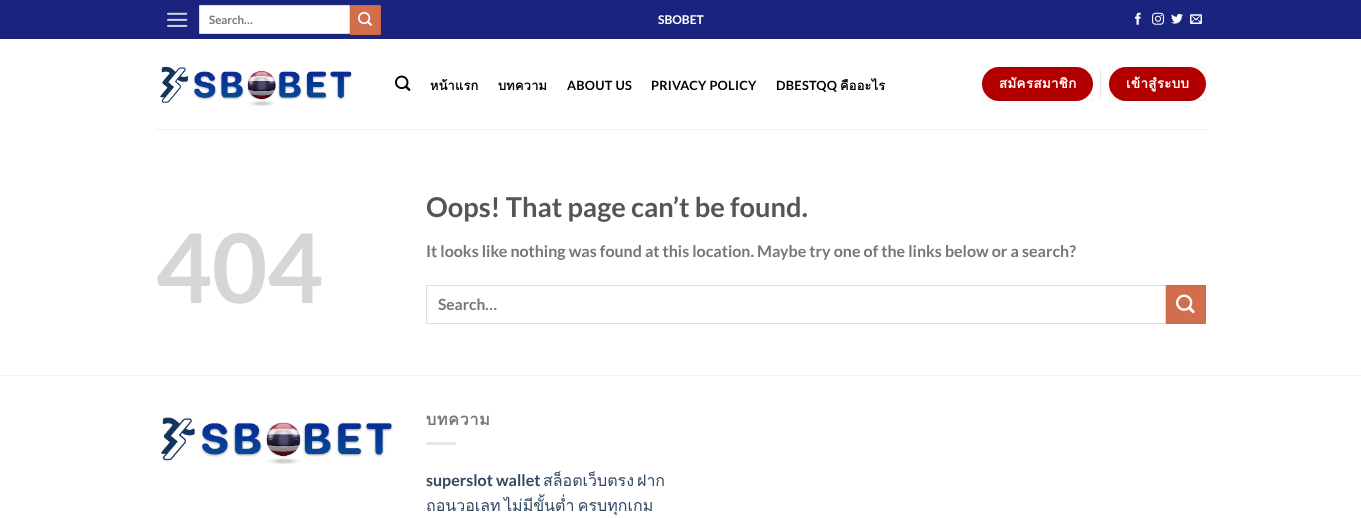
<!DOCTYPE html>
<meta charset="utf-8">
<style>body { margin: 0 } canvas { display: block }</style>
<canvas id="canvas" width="1361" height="518"></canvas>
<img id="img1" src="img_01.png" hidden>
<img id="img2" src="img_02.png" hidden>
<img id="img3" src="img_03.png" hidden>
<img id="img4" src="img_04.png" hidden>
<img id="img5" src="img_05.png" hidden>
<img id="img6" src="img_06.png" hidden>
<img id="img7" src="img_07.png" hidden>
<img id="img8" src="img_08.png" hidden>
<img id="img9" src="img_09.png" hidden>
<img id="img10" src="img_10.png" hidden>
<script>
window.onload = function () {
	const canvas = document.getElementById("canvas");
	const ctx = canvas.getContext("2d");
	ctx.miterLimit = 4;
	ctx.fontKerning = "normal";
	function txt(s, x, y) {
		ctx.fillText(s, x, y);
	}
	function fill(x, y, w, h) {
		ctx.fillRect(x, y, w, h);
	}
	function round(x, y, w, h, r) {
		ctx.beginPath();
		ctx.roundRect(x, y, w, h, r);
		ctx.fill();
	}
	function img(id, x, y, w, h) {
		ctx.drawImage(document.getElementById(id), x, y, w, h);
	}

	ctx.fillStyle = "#FFFFFF";
	fill(0, 0, 1361, 518);
	ctx.fillStyle = "#1A237E";
	fill(0, 0, 1361, 39);
	img("img1", 167, 12, 21, 15);
	ctx.fillStyle = "#FFFFFF";
	ctx.beginPath();
	ctx.rect(199.5, 5.5, 150, 28);
	ctx.fill();
	ctx.strokeStyle = "#DDDDDD";
	ctx.stroke();
	ctx.fillStyle = "#D26E4B";
	ctx.beginPath();
	ctx.rect(350.5, 5.5, 30, 29);
	ctx.fill();
	ctx.strokeStyle = "#C86947";
	ctx.stroke();
	img("img2", 358, 11, 14, 15);
	img("img3", 1135, 12, 6, 13);
	img("img4", 1152, 12, 12, 13);
	img("img5", 1171, 13, 12, 11);
	img("img6", 1190, 14, 12, 10);
	img("img7", 160, 66, 193, 40);
	img("img8", 395, 75, 16, 16);
	ctx.fillStyle = "#B20000";
	round(982, 67, 111, 34, 17);
	ctx.strokeStyle = "rgba(0, 0, 0, 0.05)";
	ctx.strokeRect(982.5, 67.5, 110, 33);
	ctx.fillStyle = "#970000";
	ctx.beginPath();
	ctx.moveTo(1082, 99);
	ctx.lineTo(993, 99);
	ctx.lineTo(999, 100);
	ctx.lineTo(1076, 100);
	ctx.closePath();
	ctx.fill();
	ctx.fillStyle = "#E6E6E6";
	fill(1100, 69, 1, 30);
	ctx.fillStyle = "#B20000";
	round(1109, 67, 97, 34, 17);
	ctx.strokeRect(1109.5, 67.5, 96, 33);
	ctx.fillStyle = "#970000";
	ctx.beginPath();
	ctx.moveTo(1195, 99);
	ctx.lineTo(1120, 99);
	ctx.lineTo(1126, 100);
	ctx.lineTo(1189, 100);
	ctx.closePath();
	ctx.fill();
	ctx.fillStyle = "#F1F1F1";
	fill(156, 129, 1050, 1);
	ctx.strokeStyle = "#DDDDDD";
	ctx.strokeRect(426.5, 285.5, 739, 38);
	ctx.fillStyle = "#D26E4B";
	ctx.beginPath();
	ctx.rect(1166.5, 285.5, 39, 38);
	ctx.fill();
	ctx.strokeStyle = "#C86947";
	ctx.stroke();
	img("img9", 1176, 294, 19, 20);
	ctx.fillStyle = "#F2F2F2";
	fill(0, 375, 1361, 1);
	img("img10", 161, 417, 232, 47);
	ctx.fillStyle = "#E6E6E6";
	fill(426, 442, 30, 3);
	ctx.font = "bold 11.5px Lato";
	ctx.fillStyle = "#777777";
	txt("Search…", 209, 24);
	ctx.font = "bold 12px Lato";
	ctx.fillStyle = "#FFFFFF";
	txt("SBOBET", 658, 24);
	ctx.letterSpacing = "0.25px";
	ctx.font = "bold 12.75px Loma";
	ctx.fillStyle = "#000000";
	txt("หน้าแรก", 430, 90);
	txt("บทความ", 498, 90);
	ctx.font = "bold 12.75px Lato";
	txt("ABOUT US", 567, 90);
	txt("PRIVACY POLICY", 651, 90);
	txt("DBESTQQ", 776, 90);
	ctx.font = "bold 12.75px Loma";
	txt("คืออะไร", 840, 90);
	ctx.letterSpacing = "0.4px";
	ctx.font = "bold 13.25px Loma";
	ctx.fillStyle = "#FFFFFF";
	txt("สมัครสมาชิก", 999, 88);
	txt("เข้าสู๋ระบบ", 1126, 88);
	ctx.letterSpacing = "0px";
	ctx.font = "bold 96px Lato";
	ctx.fillStyle = "#D6D6D6";
	txt("404", 156, 303);
	ctx.font = "bold 27.25px Lato";
	ctx.fillStyle = "#555555";
	txt("Oops! That page can’t be found.", 426, 217);
	ctx.font = "bold 16px Lato";
	ctx.fillStyle = "#777777";
	txt("It looks like nothing was found at this location. Maybe try one of the links below or a search?", 426, 257);
	ctx.font = "bold 15.5px Lato";
	txt("Search…", 438, 310);
	ctx.letterSpacing = "0.75px";
	ctx.font = "bold 16px Loma";
	txt("บทความ", 426, 425);
	ctx.letterSpacing = "0px";
	ctx.font = "bold 16px Lato";
	ctx.fillStyle = "#334862";
	txt("superslot wallet", 426, 486);
	ctx.font = "16px Loma";
	txt("สล็อตเว็บตรง", 543, 486);
	txt("ฝาก", 637, 486);
	ctx.wordSpacing = "-2px";
	txt("ถอนวอเลท ไม่มีขั้นต่ำ ครบทุกเกม", 426, 511);
};
</script>
